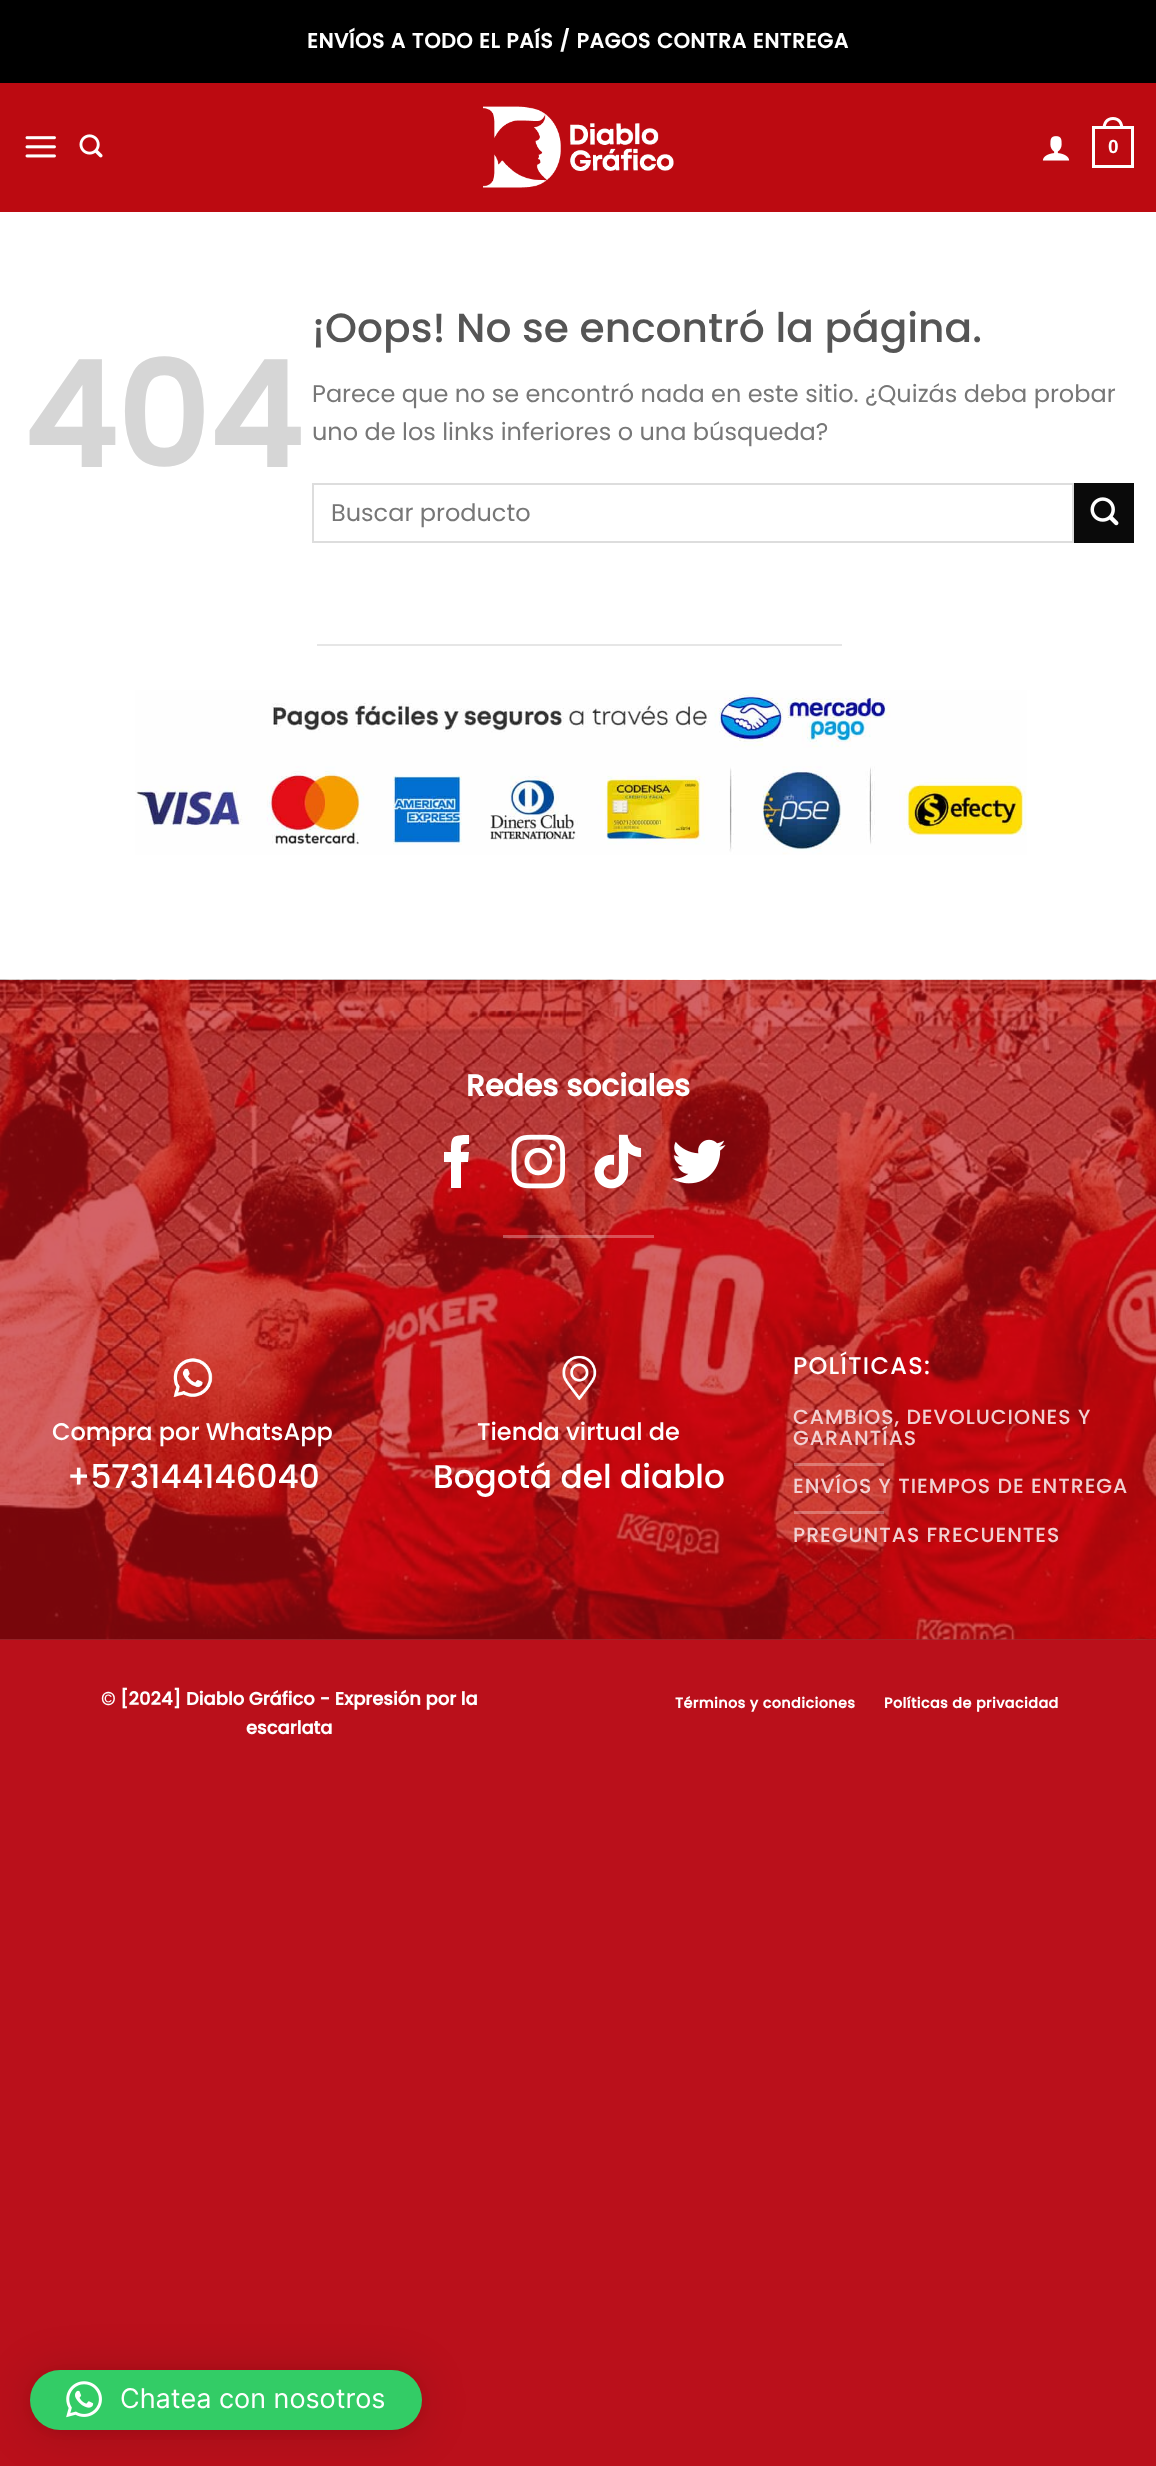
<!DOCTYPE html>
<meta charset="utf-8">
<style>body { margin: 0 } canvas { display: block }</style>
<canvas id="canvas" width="1156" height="2466"></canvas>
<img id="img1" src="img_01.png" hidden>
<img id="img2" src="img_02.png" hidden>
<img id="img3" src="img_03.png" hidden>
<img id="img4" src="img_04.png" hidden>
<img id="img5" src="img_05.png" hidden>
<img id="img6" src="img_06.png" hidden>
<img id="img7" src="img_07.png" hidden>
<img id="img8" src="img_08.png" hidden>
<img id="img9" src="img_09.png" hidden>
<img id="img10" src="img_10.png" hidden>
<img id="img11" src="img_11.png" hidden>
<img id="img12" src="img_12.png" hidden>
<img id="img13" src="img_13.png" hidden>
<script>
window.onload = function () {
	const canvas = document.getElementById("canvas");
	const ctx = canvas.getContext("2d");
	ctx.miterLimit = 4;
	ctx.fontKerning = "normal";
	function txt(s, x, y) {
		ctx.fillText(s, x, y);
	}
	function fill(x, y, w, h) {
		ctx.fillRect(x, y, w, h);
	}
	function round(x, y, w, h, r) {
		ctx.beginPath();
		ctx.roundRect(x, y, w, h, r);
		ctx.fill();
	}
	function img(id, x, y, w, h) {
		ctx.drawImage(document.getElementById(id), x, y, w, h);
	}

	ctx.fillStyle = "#BA101B";
	fill(0, 0, 1156, 2466);
	ctx.fillStyle = "#FFFFFF";
	fill(0, 212, 1156, 768);
	ctx.fillStyle = "#000000";
	fill(0, 0, 1156, 83);
	ctx.fillStyle = "#BC0A11";
	fill(0, 83, 1156, 129);
	img("img1", 25, 136, 31, 22);
	img("img2", 79, 134, 24, 24);
	img("img3", 483, 106, 191, 82);
	img("img4", 1042, 136, 28, 25);
	ctx.strokeStyle = "#FFFFFF";
	ctx.lineWidth = 3;
	ctx.strokeRect(1093.5, 127.5, 39, 39);
	ctx.fillStyle = "#FFFFFF";
	ctx.beginPath();
	ctx.moveTo(1113, 117);
	ctx.bezierCurveTo(1120, 117, 1123.5, 122.5, 1123.5, 129);
	ctx.lineTo(1102.5, 129);
	ctx.bezierCurveTo(1102.5, 122.5, 1106, 117, 1113, 117);
	ctx.closePath();
	ctx.moveTo(1113, 120);
	ctx.bezierCurveTo(1118.5, 120, 1120.5, 124.5, 1120.5, 129);
	ctx.lineTo(1105.5, 129);
	ctx.bezierCurveTo(1105.5, 124.5, 1107.5, 120, 1113, 120);
	ctx.closePath();
	ctx.fill("evenodd");
	ctx.strokeStyle = "#DDDDDD";
	ctx.lineWidth = 2;
	ctx.strokeRect(313, 484, 760, 58);
	ctx.fillStyle = "#0A0A0A";
	fill(1074, 483, 60, 60);
	img("img5", 1090, 497, 29, 29);
	ctx.fillStyle = "#E6E6E6";
	fill(317, 644, 525, 2);
	img("img6", 135, 690, 892, 165);
	ctx.fillStyle = "#9D2B30";
	fill(0, 1639, 1156, 1);
	img("img7", 0, 979, 1156, 661);
	ctx.fillStyle = "#FFFFFF";
	ctx.beginPath();
	ctx.moveTo(461, 1188);
	ctx.lineTo(451, 1188);
	ctx.lineTo(451, 1162);
	ctx.lineTo(444, 1162);
	ctx.lineTo(444, 1152);
	ctx.lineTo(451, 1152);
	ctx.bezierCurveTo(451, 1136, 452, 1135, 469, 1135);
	ctx.lineTo(469, 1144);
	ctx.bezierCurveTo(460, 1144, 461, 1144, 461, 1152);
	ctx.lineTo(469, 1152);
	ctx.lineTo(468, 1162);
	ctx.lineTo(461, 1162);
	ctx.closePath();
	ctx.fill();
	img("img8", 511, 1134, 54, 55);
	img("img9", 594, 1134, 48, 55);
	img("img10", 672, 1139, 54, 45);
	ctx.fillStyle = "rgba(255, 255, 255, 0.3)";
	fill(503, 1235, 151, 3);
	img("img11", 173, 1358, 40, 40);
	img("img12", 562, 1355, 35, 45);
	fill(794, 1463, 90, 3);
	fill(794, 1511, 90, 3);
	ctx.fillStyle = "rgba(0, 0, 0, 0.16)";
	ctx.filter = "blur(24px)";
	ctx.beginPath();
	ctx.roundRect(30, 2373, 392, 60, 30);
	ctx.fill();
	ctx.filter = "none";
	ctx.fillStyle = "rgba(0, 0, 0, 0.06)";
	ctx.filter = "blur(4.5px)";
	ctx.beginPath();
	ctx.roundRect(30, 2372, 392, 60, 30);
	ctx.fill();
	ctx.filter = "none";
	ctx.fillStyle = "#33CC66";
	round(30, 2370, 392, 60, 30);
	img("img13", 66, 2381, 36, 37);
	ctx.letterSpacing = "0.6px";
	ctx.font = "bold 20.7px Poppins";
	ctx.fillStyle = "#FFFFFF";
	txt("ENVÍOS A TODO EL PAÍS / PAGOS CONTRA ENTREGA", 307, 48);
	ctx.letterSpacing = "0px";
	ctx.font = "bold 19px Liberation Sans";
	txt("0", 1108, 153);
	ctx.font = "bold 144px Poppins";
	ctx.fillStyle = "#D6D6D6";
	txt("404", 23, 467);
	ctx.font = "500 40.75px Poppins";
	ctx.fillStyle = "#555555";
	txt("¡Oops! No se encontró la página.", 312, 342);
	ctx.font = "24px Poppins";
	ctx.fillStyle = "#777777";
	txt("Parece que no se encontró nada en este sitio. ¿Quizás deba probar", 312, 402);
	txt("uno de los links inferiores o una búsqueda?", 312, 440);
	txt("Buscar producto", 331, 521);
	ctx.font = "bold 30px Poppins";
	ctx.fillStyle = "#FFFFFF";
	txt("Redes sociales", 466, 1096);
	ctx.font = "500 24px Poppins";
	txt("Compra por WhatsApp", 52, 1440);
	ctx.font = "500 32.75px Poppins";
	txt("+573144146040", 67, 1488);
	ctx.font = "500 24px Poppins";
	txt("Tienda virtual de", 477, 1440);
	ctx.font = "500 32.75px Poppins";
	txt("Bogotá del diablo", 433, 1488);
	ctx.letterSpacing = "1.25px";
	ctx.font = "500 24px Poppins";
	txt("POLÍTICAS:", 793, 1374);
	ctx.letterSpacing = "1px";
	ctx.font = "500 20.4px Poppins";
	ctx.fillStyle = "#F2D1D2";
	txt("CAMBIOS, DEVOLUCIONES Y", 793, 1424);
	txt("GARANTÍAS", 793, 1445);
	txt("ENVÍOS Y TIEMPOS DE ENTREGA", 793, 1493);
	txt("PREGUNTAS FRECUENTES", 793, 1542);
	ctx.letterSpacing = "0px";
	ctx.font = "bold 18px Poppins";
	ctx.fillStyle = "#FFFFFF";
	txt("© [2024] Diablo Gráfico - Expresión por la", 101, 1705);
	txt("escarlata", 246, 1734);
	ctx.letterSpacing = "0.4px";
	ctx.font = "bold 14.4px Poppins";
	txt("Términos y condiciones", 675, 1708);
	txt("Políticas de privacidad", 884, 1708);
	ctx.letterSpacing = "0px";
	ctx.font = "27px Inter";
	txt("Chatea con nosotros", 120, 2408);
};
</script>
